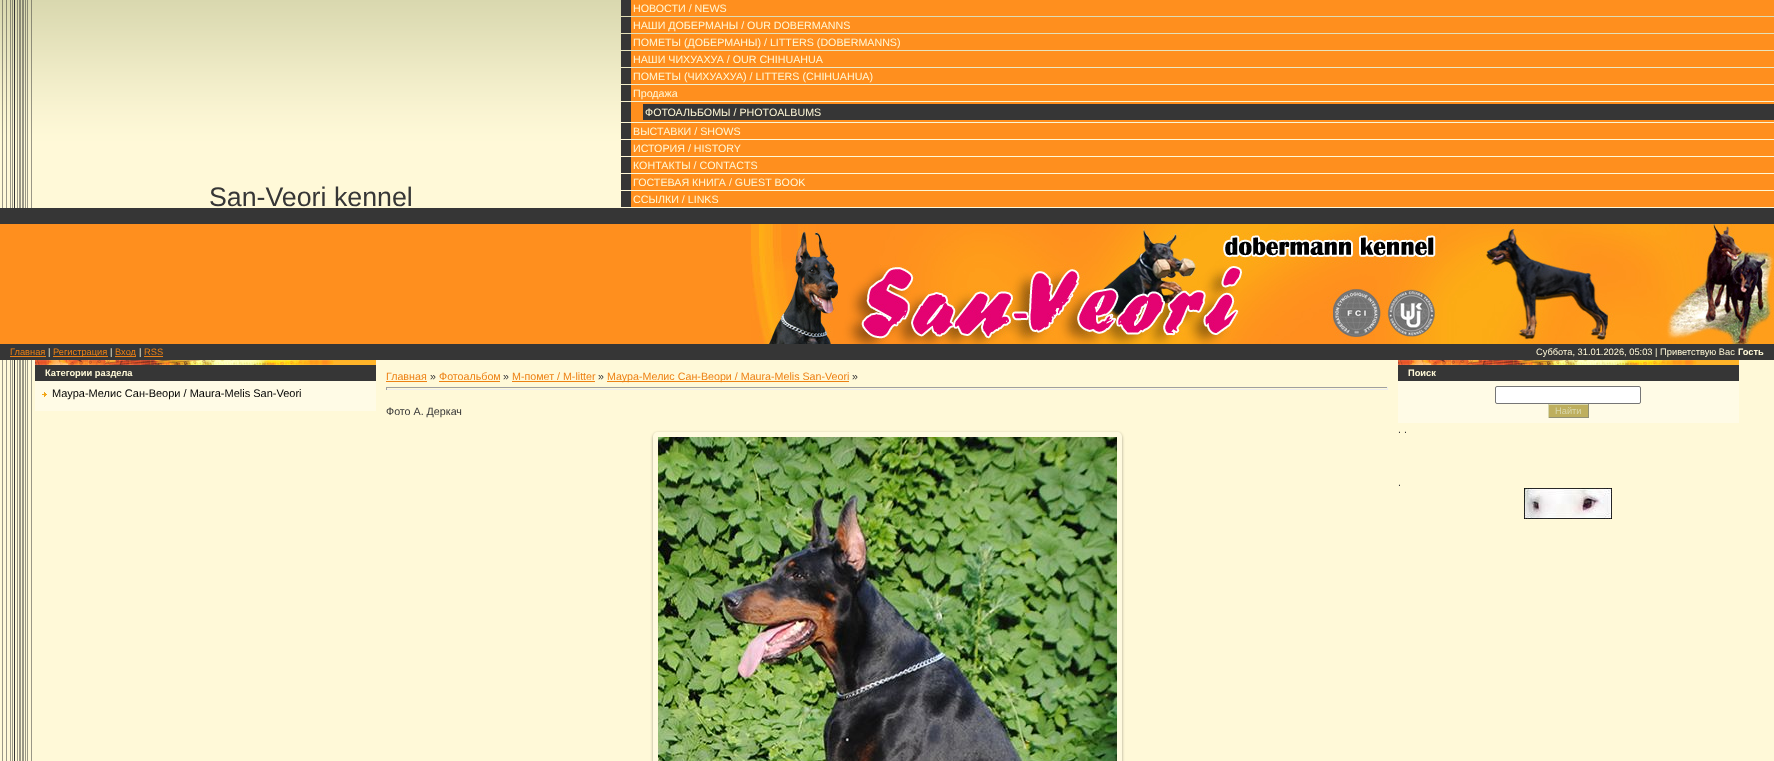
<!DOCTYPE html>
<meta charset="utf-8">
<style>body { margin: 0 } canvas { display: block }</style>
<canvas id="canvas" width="1774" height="761"></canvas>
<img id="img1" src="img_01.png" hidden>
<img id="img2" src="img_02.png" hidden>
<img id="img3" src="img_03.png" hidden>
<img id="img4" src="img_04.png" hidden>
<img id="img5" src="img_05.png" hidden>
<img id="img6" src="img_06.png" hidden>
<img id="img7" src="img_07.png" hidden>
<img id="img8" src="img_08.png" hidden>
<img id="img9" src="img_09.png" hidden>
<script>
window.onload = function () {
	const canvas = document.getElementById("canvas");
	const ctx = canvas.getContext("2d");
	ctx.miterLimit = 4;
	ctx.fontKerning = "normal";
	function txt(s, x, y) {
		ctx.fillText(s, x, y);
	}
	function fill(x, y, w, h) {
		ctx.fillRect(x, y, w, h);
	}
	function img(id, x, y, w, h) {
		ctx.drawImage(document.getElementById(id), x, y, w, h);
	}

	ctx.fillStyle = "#FFFFFF";
	fill(0, 0, 1774, 761);
	img("img1", 0, 0, 1774, 208);
	img("img2", 2, 0, 30, 208);
	ctx.fillStyle = "#FF8F1E";
	fill(631, 0, 1143, 16);
	ctx.fillStyle = "#363636";
	fill(621, 0, 10, 16);
	ctx.fillStyle = "#FF8F1E";
	fill(631, 17, 1143, 16);
	ctx.fillStyle = "#363636";
	fill(621, 17, 10, 16);
	ctx.fillStyle = "#FF8F1E";
	fill(631, 34, 1143, 16);
	ctx.fillStyle = "#363636";
	fill(621, 34, 10, 16);
	ctx.fillStyle = "#FF8F1E";
	fill(631, 51, 1143, 16);
	ctx.fillStyle = "#363636";
	fill(621, 51, 10, 16);
	ctx.fillStyle = "#FF8F1E";
	fill(631, 68, 1143, 16);
	ctx.fillStyle = "#363636";
	fill(621, 68, 10, 16);
	ctx.fillStyle = "#FF8F1E";
	fill(631, 85, 1143, 16);
	ctx.fillStyle = "#363636";
	fill(621, 85, 10, 16);
	ctx.fillStyle = "#FF8F1E";
	fill(631, 102, 1143, 20);
	ctx.fillStyle = "#363636";
	fill(621, 102, 10, 20);
	fill(643, 104, 1131, 16);
	ctx.fillStyle = "#FF8F1E";
	fill(631, 123, 1143, 16);
	ctx.fillStyle = "#363636";
	fill(621, 123, 10, 16);
	ctx.fillStyle = "#FF8F1E";
	fill(631, 140, 1143, 16);
	ctx.fillStyle = "#363636";
	fill(621, 140, 10, 16);
	ctx.fillStyle = "#FF8F1E";
	fill(631, 157, 1143, 16);
	ctx.fillStyle = "#363636";
	fill(621, 157, 10, 16);
	ctx.fillStyle = "#FF8F1E";
	fill(631, 174, 1143, 16);
	ctx.fillStyle = "#363636";
	fill(621, 174, 10, 16);
	ctx.fillStyle = "#FF8F1E";
	fill(631, 191, 1143, 16);
	ctx.fillStyle = "#363636";
	fill(621, 191, 10, 16);
	fill(0, 208, 1774, 16);
	ctx.fillStyle = "#FF8F1E";
	fill(0, 224, 751, 120);
	img("img3", 751, 224, 1023, 120);
	ctx.fillStyle = "#363636";
	fill(0, 344, 1774, 16);
	ctx.fillStyle = "#ED8114";
	fill(10, 356, 36, 1);
	fill(53, 356, 55, 1);
	fill(115, 356, 21, 1);
	fill(144, 356, 19, 1);
	ctx.fillStyle = "#FFF9D8";
	fill(0, 360, 1774, 401);
	img("img4", 2, 360, 30, 401);
	ctx.fillStyle = "#FFFBE6";
	fill(35, 381, 341, 30);
	ctx.fillStyle = "#FFB429";
	fill(334, 360, 42, 5);
	img("img5", 35, 360, 299, 5);
	ctx.fillStyle = "#363636";
	fill(35, 365, 341, 16);
	img("img6", 42, 392, 5, 5);
	ctx.fillStyle = "#ED8114";
	fill(386, 381, 41, 1);
	fill(439, 381, 61, 1);
	fill(512, 381, 83, 1);
	fill(607, 381, 242, 1);
	ctx.fillStyle = "#9F9F9F";
	fill(386, 387, 1002, 1);
	ctx.fillStyle = "#EEEEEE";
	fill(1387, 387, 1, 3);
	fill(386, 389, 1002, 1);
	ctx.fillStyle = "#9F9F9F";
	fill(386, 387, 1, 3);
	ctx.save();
	ctx.beginPath();
	ctx.moveTo(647, 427);
	ctx.lineTo(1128, 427);
	ctx.lineTo(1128, 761);
	ctx.lineTo(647, 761);
	ctx.closePath();
	ctx.moveTo(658, 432);
	ctx.lineTo(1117, 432);
	ctx.bezierCurveTo(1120, 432, 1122, 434, 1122, 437);
	ctx.lineTo(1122, 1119);
	ctx.bezierCurveTo(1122, 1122, 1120, 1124, 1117, 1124);
	ctx.lineTo(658, 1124);
	ctx.bezierCurveTo(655, 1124, 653, 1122, 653, 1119);
	ctx.lineTo(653, 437);
	ctx.bezierCurveTo(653, 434, 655, 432, 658, 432);
	ctx.closePath();
	ctx.clip("evenodd");
	ctx.fillStyle = "rgba(0, 0, 0, 0.37)";
	ctx.filter = "blur(1.5px)";
	ctx.beginPath();
	ctx.roundRect(653, 433, 469, 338, 5);
	ctx.fill();
	ctx.filter = "none";
	ctx.restore();
	img("img7", 653, 432, 469, 329);
	img("img8", 658, 437, 459, 324);
	ctx.fillStyle = "#FFFBE6";
	fill(1398, 381, 341, 42);
	ctx.fillStyle = "#FFB429";
	fill(1697, 360, 42, 5);
	img("img5", 1398, 360, 299, 5);
	ctx.fillStyle = "#363636";
	fill(1398, 365, 341, 16);
	ctx.fillStyle = "#FFFFFF";
	ctx.beginPath();
	ctx.roundRect(1495.5, 386.5, 145, 17, 1.5);
	ctx.fill();
	ctx.strokeStyle = "#767676";
	ctx.stroke();
	ctx.fillStyle = "#BEAF5E";
	fill(1549, 405, 39, 12);
	ctx.fillStyle = "#D9D8AE";
	fill(1548, 404, 41, 1);
	ctx.fillStyle = "#919074";
	fill(1588, 404, 1, 14);
	fill(1548, 417, 41, 1);
	ctx.fillStyle = "#D9D8AE";
	fill(1548, 404, 1, 14);
	img("img9", 1524, 488, 88, 31);
	ctx.font = "26.75px Liberation Sans";
	ctx.fillStyle = "#363636";
	txt("San-Veori kennel", 209, 206);
	ctx.font = "10.7px Liberation Sans";
	ctx.fillStyle = "#FFF9D8";
	txt("НОВОСТИ / NEWS", 633, 12);
	txt("НАШИ ДОБЕРМАНЫ / OUR DOBERMANNS", 633, 29);
	txt("ПОМЕТЫ (ДОБЕРМАНЫ) / LITTERS (DOBERMANNS)", 633, 46);
	txt("НАШИ ЧИХУАХУА / OUR CHIHUAHUA", 633, 63);
	txt("ПОМЕТЫ (ЧИХУАХУА) / LITTERS (CHIHUAHUA)", 633, 80);
	txt("Продажа", 633, 97);
	txt("ФОТОАЛЬБОМЫ / PHOTOALBUMS", 645, 116);
	txt("ВЫСТАВКИ / SHOWS", 633, 135);
	txt("ИСТОРИЯ / HISTORY", 633, 152);
	txt("КОНТАКТЫ / CONTACTS", 633, 169);
	txt("ГОСТЕВАЯ КНИГА / GUEST BOOK", 633, 186);
	txt("ССЫЛКИ / LINKS", 633, 203);
	ctx.font = "9.3px Liberation Sans";
	ctx.fillStyle = "#ED8114";
	txt("Главная", 10, 355);
	ctx.fillStyle = "#FFF9D8";
	txt("|", 48, 355);
	ctx.fillStyle = "#ED8114";
	txt("Регистрация", 53, 355);
	ctx.fillStyle = "#FFF9D8";
	txt("|", 110, 355);
	ctx.fillStyle = "#ED8114";
	txt("Вход", 115, 355);
	ctx.fillStyle = "#FFF9D8";
	txt("|", 139, 355);
	ctx.fillStyle = "#ED8114";
	txt("RSS", 144, 355);
	ctx.fillStyle = "#FFF9D8";
	txt("Суббота, 31.01.2026, 05:03 | Приветствую Вас", 1536, 355);
	ctx.font = "bold 9.3px Liberation Sans";
	txt("Гость", 1738, 355);
	txt("Категории раздела", 45, 376);
	ctx.font = "11px Liberation Sans";
	ctx.fillStyle = "#000000";
	txt("Маура-Мелис Сан-Веори / Maura-Melis San-Veori", 52, 397);
	ctx.font = "10.7px Liberation Sans";
	ctx.fillStyle = "#ED8114";
	txt("Главная", 386, 380);
	ctx.fillStyle = "#363636";
	txt("»", 430, 380);
	ctx.fillStyle = "#ED8114";
	txt("Фотоальбом", 439, 380);
	ctx.fillStyle = "#363636";
	txt("»", 503, 380);
	ctx.fillStyle = "#ED8114";
	txt("М-помет / M-litter", 512, 380);
	ctx.fillStyle = "#363636";
	txt("»", 598, 380);
	ctx.fillStyle = "#ED8114";
	txt("Маура-Мелис Сан-Веори / Maura-Melis San-Veori", 607, 380);
	ctx.fillStyle = "#363636";
	txt("»", 852, 380);
	txt("Фото А. Деркач", 386, 415);
	ctx.font = "bold 9.3px Liberation Sans";
	ctx.fillStyle = "#FFF9D8";
	txt("Поиск", 1408, 376);
	ctx.font = "9.3px Liberation Sans";
	ctx.fillStyle = "#D9D8AE";
	txt("Найти", 1555, 414);
	ctx.font = "10.7px Liberation Sans";
	ctx.fillStyle = "#363636";
	txt(". .", 1398, 433);
	txt(".", 1398, 486);
};
</script>
